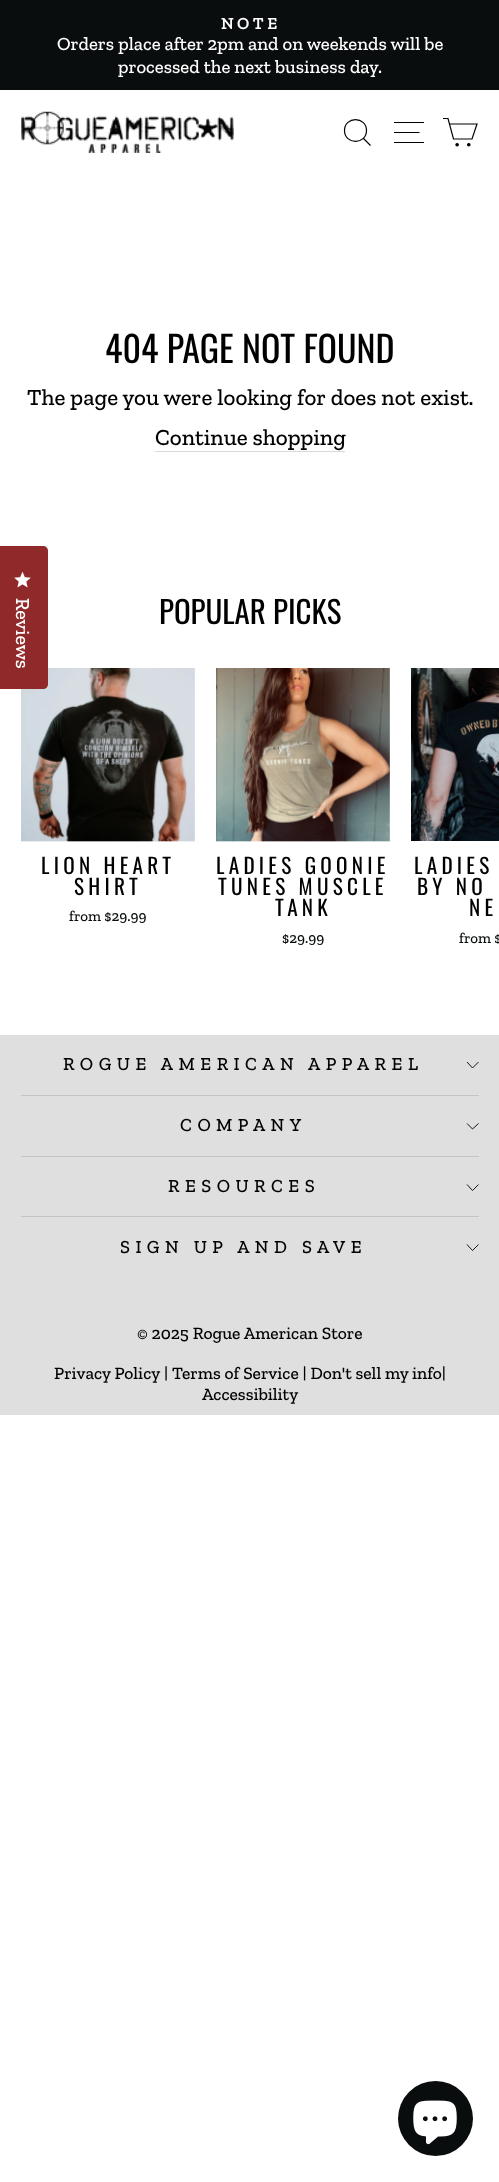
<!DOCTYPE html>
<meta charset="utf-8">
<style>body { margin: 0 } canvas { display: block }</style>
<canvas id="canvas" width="499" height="2182"></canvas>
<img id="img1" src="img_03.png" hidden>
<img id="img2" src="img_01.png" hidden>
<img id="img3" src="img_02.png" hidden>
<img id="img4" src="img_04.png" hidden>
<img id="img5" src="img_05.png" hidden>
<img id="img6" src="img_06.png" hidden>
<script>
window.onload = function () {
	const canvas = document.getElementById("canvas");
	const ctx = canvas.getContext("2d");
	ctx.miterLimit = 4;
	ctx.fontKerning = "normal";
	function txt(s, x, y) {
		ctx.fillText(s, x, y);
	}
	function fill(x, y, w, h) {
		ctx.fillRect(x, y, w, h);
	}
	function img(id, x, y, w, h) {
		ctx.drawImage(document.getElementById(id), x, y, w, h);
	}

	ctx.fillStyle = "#FFFFFF";
	fill(0, 0, 499, 2182);
	img("img1", 21, 668, 174, 174);
	ctx.fillStyle = "#902A2A";
	ctx.beginPath();
	ctx.moveTo(-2, 546);
	ctx.lineTo(43, 546);
	ctx.bezierCurveTo(46, 546, 48, 548, 48, 551);
	ctx.lineTo(48, 684);
	ctx.bezierCurveTo(48, 687, 46, 689, 43, 689);
	ctx.lineTo(-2, 689);
	ctx.closePath();
	ctx.fill();
	img("img2", 14, 571, 17, 17);
	ctx.fillStyle = "#0A0D0E";
	fill(0, 0, 499, 90);
	ctx.fillStyle = "rgba(0, 0, 0, 0.2)";
	ctx.filter = "blur(0.5px)";
	ctx.beginPath();
	ctx.rect(0, 90, 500, 84);
	ctx.fill();
	ctx.filter = "none";
	ctx.fillStyle = "#FFFFFF";
	fill(0, 90, 499, 84);
	img("img3", 21, 111, 213, 42);
	ctx.beginPath();
	ctx.moveTo(366.5, 130.5);
	ctx.bezierCurveTo(366.5, 145, 344.5, 145, 344.5, 130.5);
	ctx.bezierCurveTo(344.5, 116, 366.5, 116, 366.5, 130.5);
	ctx.closePath();
	ctx.moveTo(370.5, 145.5);
	ctx.lineTo(363.5, 138.5);
	ctx.strokeStyle = "#000000";
	ctx.lineWidth = 1.2;
	ctx.stroke();
	ctx.beginPath();
	ctx.moveTo(394, 122.5);
	ctx.lineTo(424, 122.5);
	ctx.moveTo(394, 132.5);
	ctx.lineTo(419.5, 132.5);
	ctx.moveTo(394, 142.5);
	ctx.lineTo(424, 142.5);
	ctx.stroke();
	ctx.beginPath();
	ctx.moveTo(449.5, 124);
	ctx.lineTo(477, 124);
	ctx.lineTo(472, 139);
	ctx.lineTo(453.5, 139);
	ctx.lineTo(448, 118.5);
	ctx.lineTo(443, 118.5);
	ctx.stroke();
	ctx.fillStyle = "#000000";
	ctx.beginPath();
	ctx.arc(457.1, 144.8, 1.2, 0, Math.PI * 2);
	ctx.fill();
	ctx.stroke();
	ctx.beginPath();
	ctx.arc(468.8, 144.8, 1.2, 0, Math.PI * 2);
	ctx.fill();
	ctx.stroke();
	ctx.fillStyle = "#D9D9D9";
	fill(155, 451, 190, 1);
	img("img4", 216, 668, 174, 174);
	img("img5", 411, 668, 88, 173);
	ctx.fillStyle = "#DFDFDF";
	fill(0, 1035, 499, 380);
	ctx.beginPath();
	ctx.moveTo(467, 1062);
	ctx.lineTo(472.5, 1068);
	ctx.lineTo(478.5, 1062);
	ctx.lineWidth = 0.9;
	ctx.stroke();
	ctx.fillStyle = "#C4C4C4";
	fill(21, 1095, 458, 1);
	ctx.beginPath();
	ctx.moveTo(467, 1123.5);
	ctx.lineTo(472.5, 1129);
	ctx.lineTo(478.5, 1123.5);
	ctx.stroke();
	fill(21, 1156, 458, 1);
	ctx.beginPath();
	ctx.moveTo(467, 1184.5);
	ctx.lineTo(472.5, 1190.5);
	ctx.lineTo(478.5, 1184.5);
	ctx.stroke();
	fill(21, 1216, 458, 1);
	ctx.beginPath();
	ctx.moveTo(467, 1244.5);
	ctx.lineTo(472.5, 1250.5);
	ctx.lineTo(478.5, 1244.5);
	ctx.stroke();
	ctx.fillStyle = "#0A0D0E";
	ctx.beginPath();
	ctx.arc(435.5, 2118.5, 37.5, 0, Math.PI * 2);
	ctx.fill();
	img("img6", 413, 2100, 44, 45);
	ctx.font = "500 20px Zilla Slab";
	ctx.fillStyle = "#FFFFFF";
	ctx.save();
	ctx.translate(16, 598);
	ctx.rotate(90.1 * Math.PI / 180);
	ctx.fillText("Reviews", 0, 0);
	ctx.restore();
	ctx.letterSpacing = "3.5px";
	ctx.font = "600 17px Zilla Slab";
	txt("NOTE", 221, 29);
	ctx.letterSpacing = "0px";
	ctx.font = "500 18.75px Zilla Slab";
	txt("Orders place after 2pm and on weekends will be", 57, 50);
	txt("processed the next business day.", 118, 73);
	ctx.font = "36px Oswald";
	ctx.fillStyle = "#000000";
	txt("404 PAGE NOT FOUND", 105, 363);
	ctx.font = "500 23px Zilla Slab";
	txt("The page you were looking for does not exist.", 27, 405);
	txt("Continue shopping", 155, 445);
	ctx.font = "31px Oswald";
	txt("POPULAR PICKS", 159, 624);
	ctx.letterSpacing = "4.25px";
	ctx.font = "21.25px Oswald";
	txt("LION HEART", 41, 874);
	txt("SHIRT", 74, 895);
	ctx.letterSpacing = "0px";
	ctx.font = "500 15px Zilla Slab";
	ctx.fillStyle = "#0A0D0E";
	txt("from $29.99", 69, 921);
	ctx.letterSpacing = "4.25px";
	ctx.font = "21.25px Oswald";
	ctx.fillStyle = "#000000";
	txt("LADIES GOONIE", 216, 874);
	txt("TUNES MUSCLE", 218, 895);
	txt("TANK", 275, 916);
	ctx.letterSpacing = "0px";
	ctx.font = "500 15px Zilla Slab";
	ctx.fillStyle = "#0A0D0E";
	txt("$29.99", 282, 943);
	ctx.letterSpacing = "4.25px";
	ctx.font = "21.25px Oswald";
	ctx.fillStyle = "#000000";
	txt("LADIES", 414, 874);
	txt("BY NO", 417, 895);
	txt("NE", 469, 916);
	ctx.letterSpacing = "0px";
	ctx.font = "500 15px Zilla Slab";
	ctx.fillStyle = "#0A0D0E";
	txt("from $", 459, 943);
	ctx.letterSpacing = "5.5px";
	ctx.font = "500 18.4px Zilla Slab";
	ctx.fillStyle = "#000000";
	txt("ROGUE AMERICAN APPAREL", 63, 1070);
	txt("COMPANY", 180, 1131);
	txt("RESOURCES", 168, 1192);
	txt("SIGN UP AND SAVE", 120, 1253);
	ctx.letterSpacing = "0px";
	ctx.font = "500 17.5px Zilla Slab";
	txt("© 2025 Rogue American Store", 137, 1339);
	txt("Privacy Policy", 54, 1379);
	txt("| Terms of Service | Don't sell my info|", 164, 1379);
	txt("Accessibility", 202, 1400);
};
</script>
